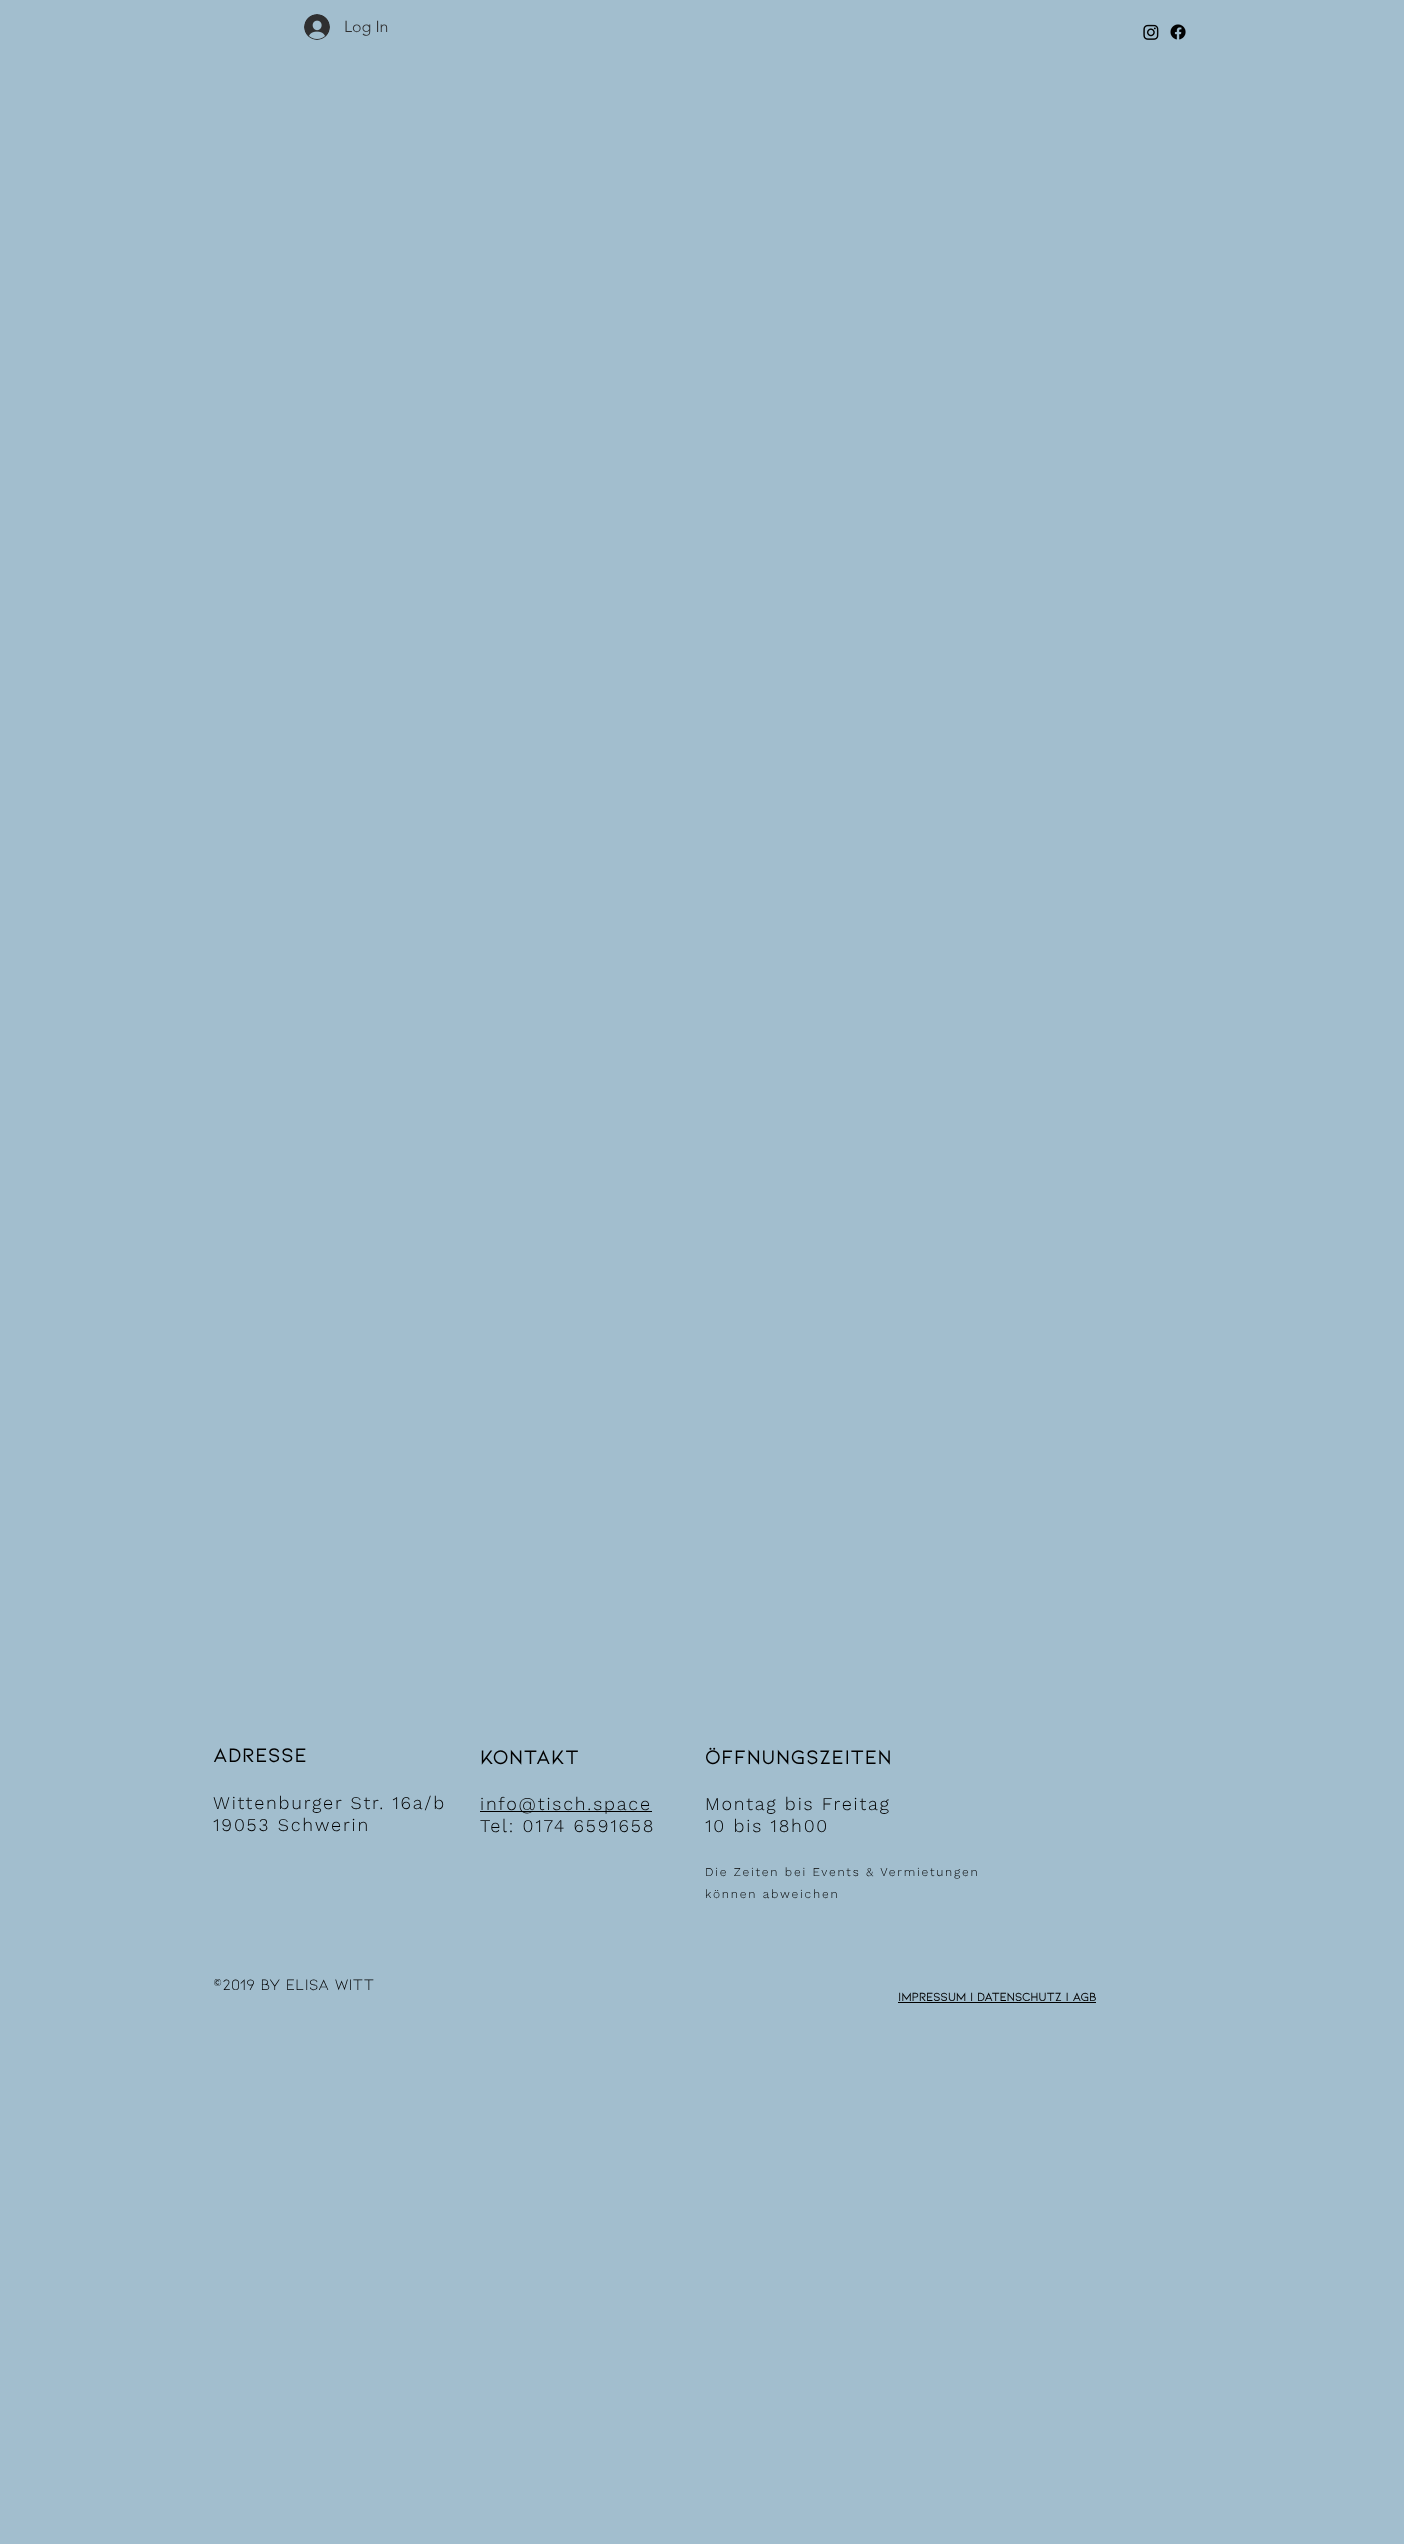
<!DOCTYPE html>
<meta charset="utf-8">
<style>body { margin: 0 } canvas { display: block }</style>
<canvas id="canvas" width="1404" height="2544"></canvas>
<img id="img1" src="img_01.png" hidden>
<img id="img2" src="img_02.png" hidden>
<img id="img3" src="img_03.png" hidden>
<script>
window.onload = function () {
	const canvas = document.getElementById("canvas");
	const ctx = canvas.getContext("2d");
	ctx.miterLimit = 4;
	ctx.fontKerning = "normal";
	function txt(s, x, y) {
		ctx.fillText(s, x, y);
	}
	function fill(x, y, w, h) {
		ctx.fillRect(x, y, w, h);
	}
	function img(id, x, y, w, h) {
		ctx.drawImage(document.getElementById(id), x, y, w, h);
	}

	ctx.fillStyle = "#A2BECE";
	fill(0, 0, 1404, 2544);
	img("img1", 304, 14, 26, 26);
	img("img2", 1143, 24, 16, 16);
	img("img3", 1170, 24, 16, 16);
	ctx.fillStyle = "#000000";
	fill(480, 1811, 172, 1);
	fill(898, 2002, 198, 1);
	ctx.font = "300 16px 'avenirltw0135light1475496'";
	ctx.fillStyle = "#2F2F30";
	txt("Log In", 344, 32);
	ctx.letterSpacing = "1px";
	ctx.font = "bold 20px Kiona";
	ctx.fillStyle = "#000000";
	txt("ADRESSE", 213, 1762);
	ctx.letterSpacing = "1.8px";
	ctx.font = "300 18px Work Sans";
	txt("Wittenburger Str. 16a/b", 213, 1809);
	txt("19053 Schwerin", 213, 1831);
	ctx.letterSpacing = "1px";
	ctx.font = "bold 20px Kiona";
	txt("KONTAKT", 480, 1764);
	ctx.letterSpacing = "1.8px";
	ctx.font = "300 18px Work Sans";
	txt("info@tisch.space", 480, 1810);
	txt("Tel: 0174 6591658", 480, 1832);
	ctx.letterSpacing = "1px";
	ctx.font = "bold 20px Kiona";
	txt("Öffnungszeiten", 705, 1764);
	ctx.letterSpacing = "1.8px";
	ctx.font = "300 18px Work Sans";
	txt("Montag bis Freitag", 705, 1810);
	txt("10 bis 18h00", 705, 1832);
	ctx.font = "300 12px Work Sans";
	txt("Die Zeiten bei Events & Vermietungen", 705, 1876);
	txt("können abweichen", 705, 1898);
	ctx.letterSpacing = "0px";
	ctx.font = "16px Kiona";
	txt("©2019 by Elisa Witt", 213, 1990);
	ctx.font = "bold 12px Kiona";
	txt("Impressum | Datenschutz | AGB", 898, 2001);
};
</script>
